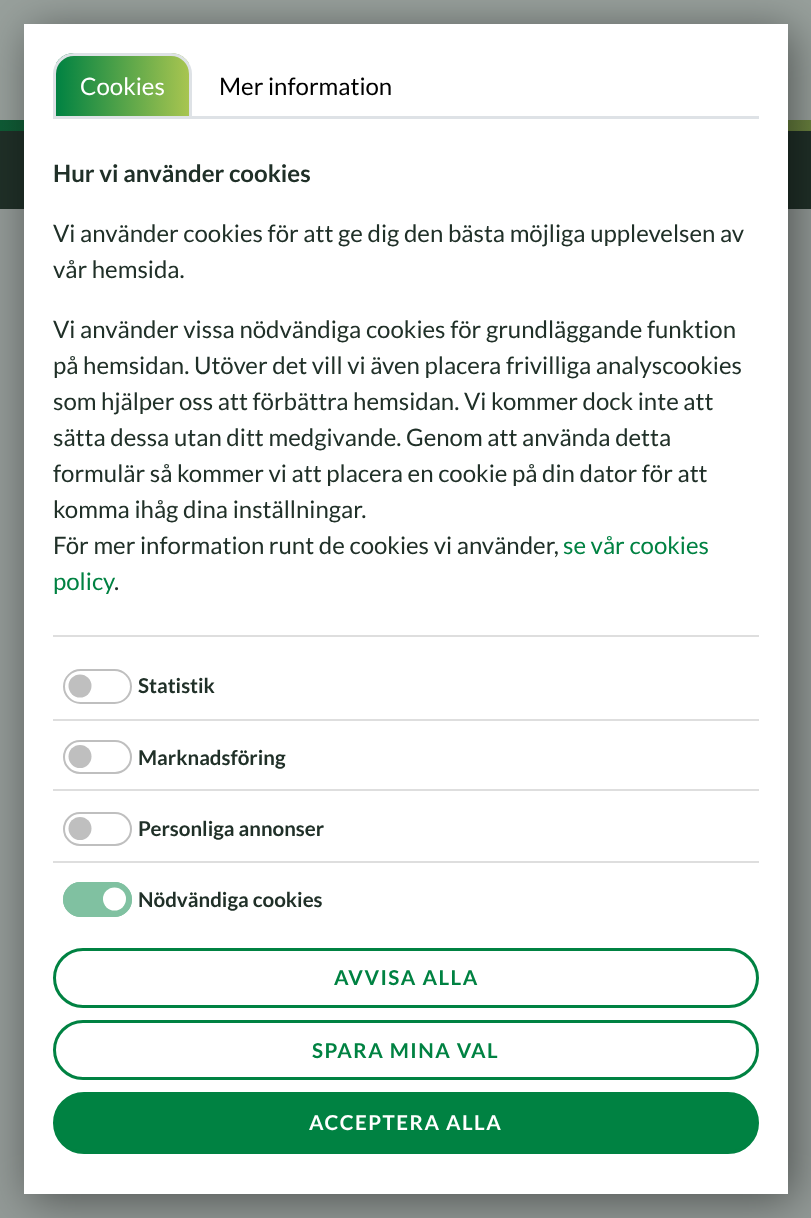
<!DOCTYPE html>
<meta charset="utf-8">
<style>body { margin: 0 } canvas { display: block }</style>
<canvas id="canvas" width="811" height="1218"></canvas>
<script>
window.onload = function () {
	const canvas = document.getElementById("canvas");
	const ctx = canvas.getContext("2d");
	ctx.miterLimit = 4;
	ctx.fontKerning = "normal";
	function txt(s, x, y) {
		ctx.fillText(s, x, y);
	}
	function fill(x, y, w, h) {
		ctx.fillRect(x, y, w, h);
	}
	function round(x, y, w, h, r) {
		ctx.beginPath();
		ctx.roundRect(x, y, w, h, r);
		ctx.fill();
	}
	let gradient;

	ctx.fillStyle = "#939A97";
	fill(0, 0, 811, 1218);
	ctx.fillStyle = "#98A09C";
	fill(0, 0, 811, 120);
	ctx.fillStyle = "#203028";
	fill(0, 131, 811, 78);
	gradient = ctx.createLinearGradient(0, 125, 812, 125);
	gradient.addColorStop(0, "#0F5C36");
	gradient.addColorStop(1, "#69803E");
	ctx.fillStyle = gradient;
	fill(0, 120, 811, 11);
	ctx.fillStyle = "rgba(0, 0, 0, 0.46)";
	ctx.filter = "blur(22.5px)";
	ctx.beginPath();
	ctx.rect(30, 30, 764, 1170);
	ctx.fill();
	ctx.filter = "none";
	ctx.fillStyle = "#FFFFFF";
	fill(24, 24, 764, 1170);
	ctx.fillStyle = "#DEE2E6";
	fill(192, 116, 567, 3);
	ctx.save();
	ctx.beginPath();
	ctx.roundRect(53, 53, 139, 66, [21, 21, 0, 0]);
	ctx.clip();
	gradient = ctx.createLinearGradient(56, 86, 189, 86);
	gradient.addColorStop(0, "#008242");
	gradient.addColorStop(1, "#A8C550");
	ctx.fillStyle = gradient;
	fill(56, 53, 133, 63);
	ctx.restore();
	ctx.beginPath();
	ctx.roundRect(54.5, 54.5, 136, 63, [19.5, 19.5, 0, 0]);
	ctx.strokeStyle = "#DEE2E6";
	ctx.lineWidth = 3;
	ctx.stroke();
	ctx.fillStyle = "#DEDEDE";
	fill(53, 635, 706, 2);
	fill(53, 719, 706, 2);
	ctx.fillStyle = "#BFBFBF";
	ctx.beginPath();
	ctx.arc(80, 686, 11.5, 0, Math.PI * 2);
	ctx.fill();
	ctx.beginPath();
	ctx.roundRect(64, 670, 67, 33, 16.5);
	ctx.strokeStyle = "#BFBFBF";
	ctx.lineWidth = 2;
	ctx.stroke();
	ctx.fillStyle = "#DEDEDE";
	fill(53, 789, 706, 2);
	ctx.fillStyle = "#BFBFBF";
	ctx.beginPath();
	ctx.arc(80, 756.5, 11.5, 0, Math.PI * 2);
	ctx.fill();
	ctx.beginPath();
	ctx.roundRect(64, 741, 67, 32, 16);
	ctx.stroke();
	ctx.fillStyle = "#DEDEDE";
	fill(53, 861, 706, 2);
	ctx.fillStyle = "#BFBFBF";
	ctx.beginPath();
	ctx.arc(80, 828.5, 11.5, 0, Math.PI * 2);
	ctx.fill();
	ctx.beginPath();
	ctx.roundRect(64, 813, 67, 32, 16);
	ctx.stroke();
	ctx.fillStyle = "#80C1A1";
	round(63, 882, 69, 35, 17.5);
	ctx.fillStyle = "#FFFFFF";
	ctx.beginPath();
	ctx.arc(114.5, 899, 11.5, 0, Math.PI * 2);
	ctx.fill();
	ctx.beginPath();
	ctx.roundRect(64, 883, 67, 33, 16.5);
	ctx.strokeStyle = "#80C1A1";
	ctx.stroke();
	ctx.beginPath();
	ctx.roundRect(54.5, 949.5, 703, 57, 28.5);
	ctx.strokeStyle = "#008242";
	ctx.lineWidth = 3;
	ctx.stroke();
	ctx.beginPath();
	ctx.roundRect(54.5, 1021.5, 703, 57, 28.5);
	ctx.stroke();
	ctx.fillStyle = "#008242";
	ctx.beginPath();
	ctx.roundRect(54.5, 1093.5, 703, 59, 29.5);
	ctx.fill();
	ctx.stroke();
	ctx.font = "24px Lato";
	ctx.fillStyle = "#FFFFFF";
	txt("Cookies", 80, 95);
	ctx.fillStyle = "#000000";
	txt("Mer information", 219, 95);
	ctx.font = "bold 24px Lato";
	ctx.fillStyle = "#203028";
	txt("Hur vi använder cookies", 53, 182);
	ctx.font = "24px Lato";
	txt("Vi använder cookies för att ge dig den bästa möjliga upplevelsen av", 53, 242);
	txt("vår hemsida.", 53, 278);
	txt("Vi använder vissa nödvändiga cookies för grundläggande funktion", 53, 338);
	txt("på hemsidan. Utöver det vill vi även placera frivilliga analyscookies", 53, 374);
	txt("som hjälper oss att förbättra hemsidan. Vi kommer dock inte att", 53, 410);
	txt("sätta dessa utan ditt medgivande. Genom att använda detta", 53, 446);
	txt("formulär så kommer vi att placera en cookie på din dator för att", 53, 482);
	txt("komma ihåg dina inställningar.", 53, 518);
	txt("För mer information runt de cookies vi använder,", 53, 554);
	ctx.fillStyle = "#008242";
	txt("se vår cookies", 563, 554);
	txt("policy", 53, 590);
	ctx.fillStyle = "#203028";
	txt(".", 114, 590);
	ctx.font = "bold 20.5px Lato";
	txt("Statistik", 138, 693);
	txt("Marknadsföring", 138, 765);
	txt("Personliga annonser", 138, 836);
	txt("Nödvändiga cookies", 138, 907);
	ctx.letterSpacing = "1.5px";
	ctx.fillStyle = "#008242";
	txt("AVVISA ALLA", 334, 985);
	txt("SPARA MINA VAL", 312, 1058);
	ctx.fillStyle = "#FFFFFF";
	txt("ACCEPTERA ALLA", 309, 1130);
};
</script>
